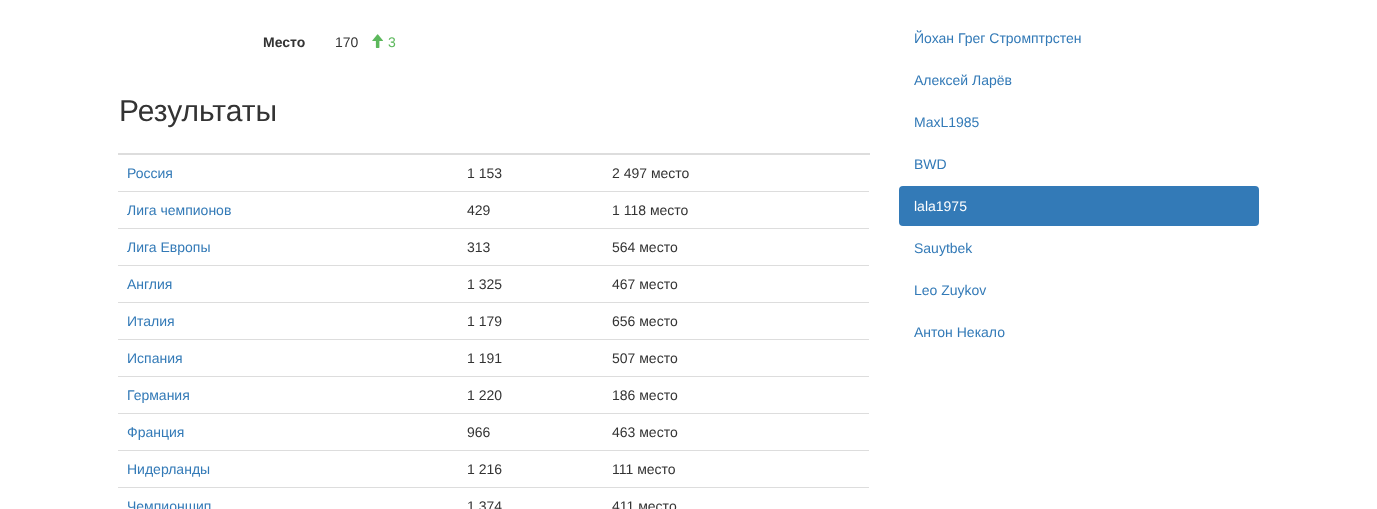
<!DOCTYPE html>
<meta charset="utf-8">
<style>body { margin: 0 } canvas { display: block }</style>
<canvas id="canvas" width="1377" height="509"></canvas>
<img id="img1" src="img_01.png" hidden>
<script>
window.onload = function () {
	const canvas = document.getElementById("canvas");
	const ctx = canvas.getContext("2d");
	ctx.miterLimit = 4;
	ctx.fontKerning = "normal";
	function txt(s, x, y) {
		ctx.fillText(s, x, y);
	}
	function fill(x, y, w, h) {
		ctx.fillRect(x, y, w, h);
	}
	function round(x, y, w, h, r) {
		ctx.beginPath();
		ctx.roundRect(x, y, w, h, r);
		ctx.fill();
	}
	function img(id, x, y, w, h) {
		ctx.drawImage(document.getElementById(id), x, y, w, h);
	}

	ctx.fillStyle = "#FFFFFF";
	fill(0, 0, 1377, 509);
	img("img1", 372, 34, 11, 14);
	ctx.fillStyle = "#DDDDDD";
	fill(118, 153, 752, 2);
	fill(118, 191, 751, 1);
	fill(118, 228, 751, 1);
	fill(118, 265, 751, 1);
	fill(118, 302, 751, 1);
	fill(118, 339, 751, 1);
	fill(118, 376, 751, 1);
	fill(118, 413, 751, 1);
	fill(118, 450, 751, 1);
	fill(118, 487, 751, 1);
	ctx.fillStyle = "#337AB7";
	round(899, 186, 360, 40, 4);
	ctx.font = "bold 14px Liberation Sans";
	ctx.fillStyle = "#333333";
	txt("Место", 263, 47);
	ctx.font = "14px Liberation Sans";
	txt("170", 335, 47);
	ctx.fillStyle = "#5CB85C";
	txt("3", 388, 47);
	ctx.font = "30px Liberation Sans";
	ctx.fillStyle = "#333333";
	txt("Результаты", 119, 121);
	ctx.font = "14px Liberation Sans";
	ctx.fillStyle = "#337AB7";
	txt("Россия", 127, 178);
	ctx.fillStyle = "#333333";
	txt("1 153", 467, 178);
	txt("2 497 место", 612, 178);
	ctx.fillStyle = "#337AB7";
	txt("Лига чемпионов", 127, 215);
	ctx.fillStyle = "#333333";
	txt("429", 467, 215);
	txt("1 118 место", 612, 215);
	ctx.fillStyle = "#337AB7";
	txt("Лига Европы", 127, 252);
	ctx.fillStyle = "#333333";
	txt("313", 467, 252);
	txt("564 место", 612, 252);
	ctx.fillStyle = "#337AB7";
	txt("Англия", 127, 289);
	ctx.fillStyle = "#333333";
	txt("1 325", 467, 289);
	txt("467 место", 612, 289);
	ctx.fillStyle = "#337AB7";
	txt("Италия", 127, 326);
	ctx.fillStyle = "#333333";
	txt("1 179", 467, 326);
	txt("656 место", 612, 326);
	ctx.fillStyle = "#337AB7";
	txt("Испания", 127, 363);
	ctx.fillStyle = "#333333";
	txt("1 191", 467, 363);
	txt("507 место", 612, 363);
	ctx.fillStyle = "#337AB7";
	txt("Германия", 127, 400);
	ctx.fillStyle = "#333333";
	txt("1 220", 467, 400);
	txt("186 место", 612, 400);
	ctx.fillStyle = "#337AB7";
	txt("Франция", 127, 437);
	ctx.fillStyle = "#333333";
	txt("966", 467, 437);
	txt("463 место", 612, 437);
	ctx.fillStyle = "#337AB7";
	txt("Нидерланды", 127, 474);
	ctx.fillStyle = "#333333";
	txt("1 216", 467, 474);
	txt("111 место", 612, 474);
	ctx.fillStyle = "#337AB7";
	txt("Чемпионшип", 127, 511);
	ctx.fillStyle = "#333333";
	txt("1 374", 467, 511);
	txt("411 место", 612, 511);
	ctx.fillStyle = "#337AB7";
	txt("Йохан Грег Стромптрстен", 914, 43);
	txt("Алексей Ларёв", 914, 85);
	txt("MaxL1985", 914, 127);
	txt("BWD", 914, 169);
	ctx.fillStyle = "#FFFFFF";
	txt("lala1975", 914, 211);
	ctx.fillStyle = "#337AB7";
	txt("Sauytbek", 914, 253);
	txt("Leo Zuykov", 914, 295);
	txt("Антон Некало", 914, 337);
};
</script>
